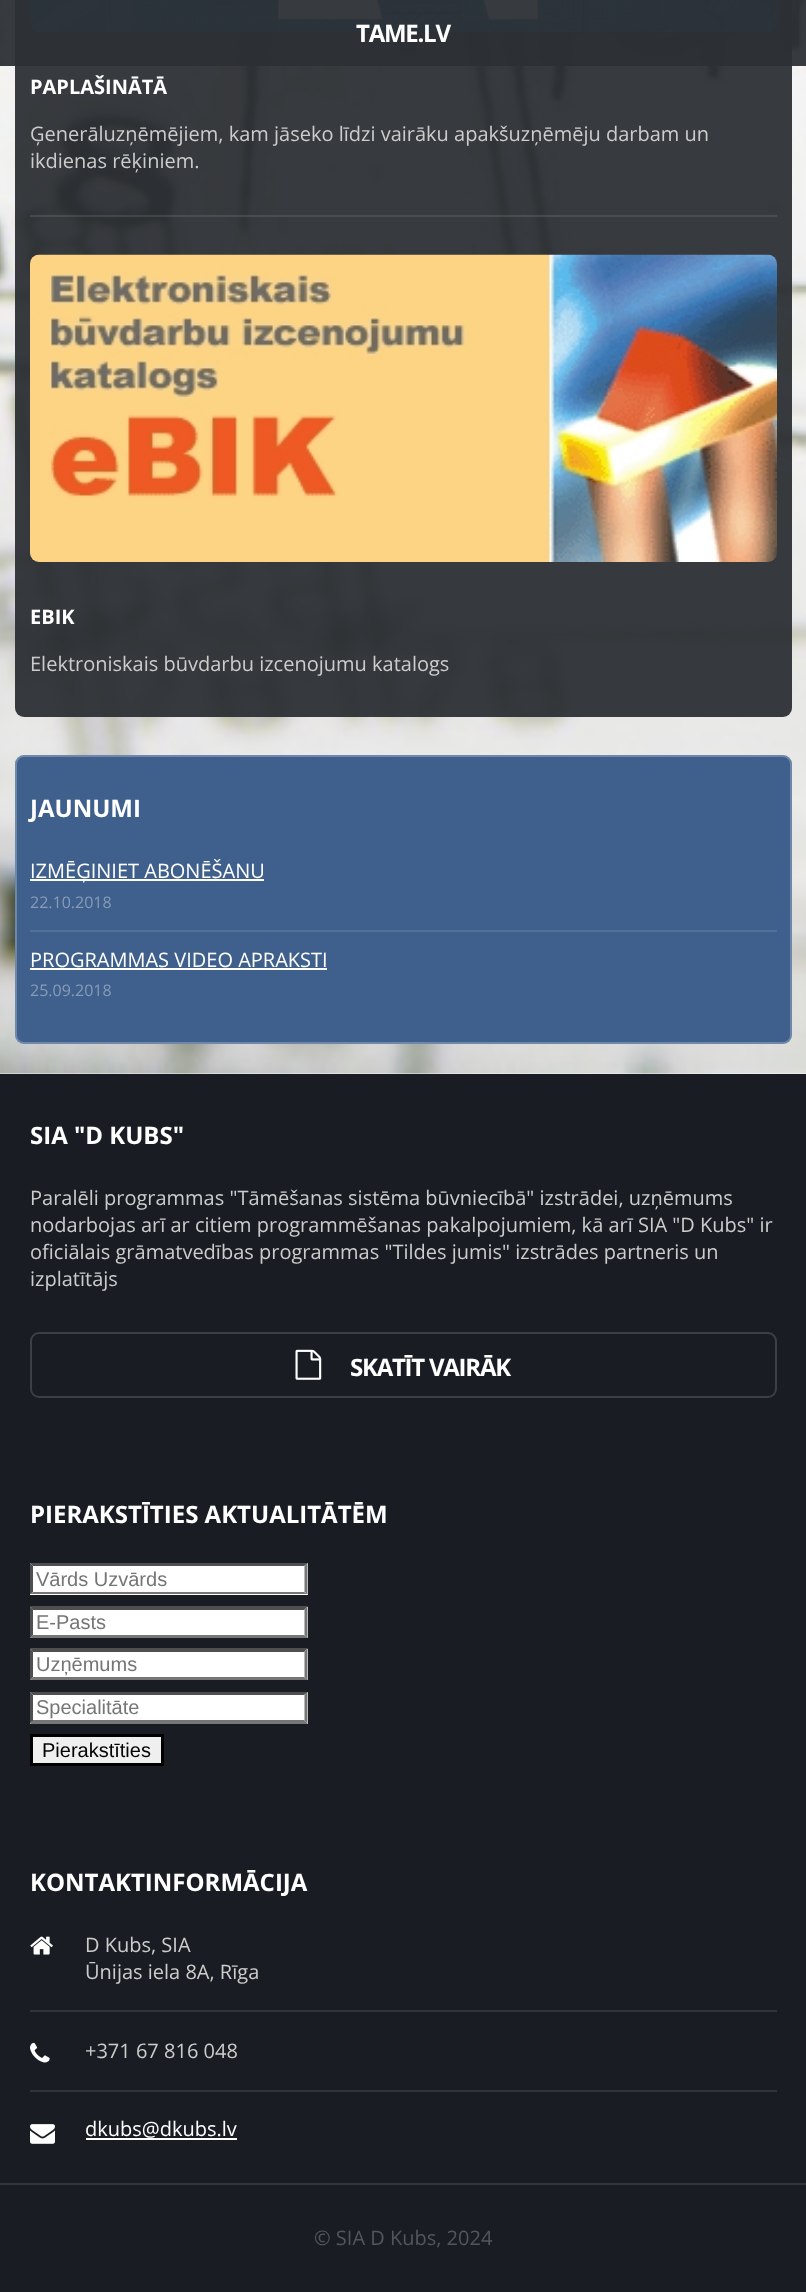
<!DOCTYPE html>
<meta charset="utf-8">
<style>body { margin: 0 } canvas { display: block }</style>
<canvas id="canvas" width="806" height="2292"></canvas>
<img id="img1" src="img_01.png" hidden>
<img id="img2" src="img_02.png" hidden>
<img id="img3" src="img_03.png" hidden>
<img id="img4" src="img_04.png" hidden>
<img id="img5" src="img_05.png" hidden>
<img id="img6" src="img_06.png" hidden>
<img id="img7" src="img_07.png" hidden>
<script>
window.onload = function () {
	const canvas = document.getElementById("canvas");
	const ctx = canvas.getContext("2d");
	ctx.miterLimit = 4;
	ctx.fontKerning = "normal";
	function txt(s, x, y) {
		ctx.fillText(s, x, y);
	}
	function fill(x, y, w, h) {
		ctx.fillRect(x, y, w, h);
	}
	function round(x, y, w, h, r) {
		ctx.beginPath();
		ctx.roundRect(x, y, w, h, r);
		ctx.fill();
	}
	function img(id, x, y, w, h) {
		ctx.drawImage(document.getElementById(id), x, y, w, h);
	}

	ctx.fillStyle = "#191D23";
	fill(0, 0, 806, 2292);
	ctx.fillStyle = "#F5F5F0";
	fill(0, 1073, 806, 1);
	img("img1", 0, 0, 806, 1074);
	ctx.fillStyle = "rgba(44, 47, 52, 0.95)";
	round(15, -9, 777, 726, 9);
	img("img2", 30, 0, 747, 33);
	fill(0, 0, 806, 66);
	ctx.fillStyle = "rgba(255, 255, 255, 0.1)";
	fill(30, 215, 747, 2);
	img("img3", 30, 254, 747, 308);
	ctx.fillStyle = "#3F608C";
	round(15, 755, 777, 289, 9);
	ctx.beginPath();
	ctx.roundRect(16, 756, 775, 287, 8);
	ctx.strokeStyle = "rgba(255, 255, 255, 0.25)";
	ctx.lineWidth = 2;
	ctx.stroke();
	ctx.fillStyle = "#FFFFFF";
	fill(30, 879, 234, 2);
	ctx.fillStyle = "#527098";
	fill(30, 930, 747, 2);
	ctx.fillStyle = "#FFFFFF";
	fill(30, 968, 297, 2);
	ctx.beginPath();
	ctx.roundRect(31, 1333, 745, 64, 8);
	ctx.strokeStyle = "#3C3F44";
	ctx.stroke();
	img("img4", 295, 1349, 27, 31);
	fill(30, 1563, 278, 32);
	ctx.fillStyle = "#4F4F4F";
	ctx.beginPath();
	ctx.moveTo(30, 1563);
	ctx.lineTo(308, 1563);
	ctx.lineTo(304, 1566);
	ctx.lineTo(33, 1566);
	ctx.closePath();
	ctx.fill();
	ctx.fillStyle = "#767676";
	ctx.beginPath();
	ctx.moveTo(307.5, 1563);
	ctx.lineTo(307.5, 1594.5);
	ctx.lineTo(304.5, 1591.5);
	ctx.lineTo(304.5, 1566);
	ctx.closePath();
	ctx.fill();
	ctx.beginPath();
	ctx.moveTo(308, 1594);
	ctx.lineTo(30, 1594);
	ctx.lineTo(33, 1592);
	ctx.lineTo(304, 1592);
	ctx.closePath();
	ctx.fill();
	ctx.fillStyle = "#4F4F4F";
	ctx.beginPath();
	ctx.moveTo(30, 1594.5);
	ctx.lineTo(30, 1563);
	ctx.lineTo(33, 1566);
	ctx.lineTo(33, 1591.5);
	ctx.closePath();
	ctx.fill();
	ctx.fillStyle = "#FFFFFF";
	fill(30, 1607, 278, 31);
	ctx.fillStyle = "#4F4F4F";
	ctx.beginPath();
	ctx.moveTo(30, 1606);
	ctx.lineTo(308, 1606);
	ctx.lineTo(304, 1610);
	ctx.lineTo(33, 1610);
	ctx.closePath();
	ctx.fill();
	ctx.fillStyle = "#767676";
	ctx.beginPath();
	ctx.moveTo(307.5, 1606.5);
	ctx.lineTo(307.5, 1638);
	ctx.lineTo(304.5, 1635);
	ctx.lineTo(304.5, 1609.5);
	ctx.closePath();
	ctx.fill();
	ctx.beginPath();
	ctx.moveTo(308, 1638);
	ctx.lineTo(30, 1638);
	ctx.lineTo(33, 1635);
	ctx.lineTo(304, 1635);
	ctx.closePath();
	ctx.fill();
	ctx.fillStyle = "#4F4F4F";
	ctx.beginPath();
	ctx.moveTo(30, 1638);
	ctx.lineTo(30, 1606.5);
	ctx.lineTo(33, 1609.5);
	ctx.lineTo(33, 1635);
	ctx.closePath();
	ctx.fill();
	ctx.fillStyle = "#FFFFFF";
	fill(30, 1649, 278, 31);
	ctx.fillStyle = "#4F4F4F";
	ctx.beginPath();
	ctx.moveTo(30, 1648);
	ctx.lineTo(308, 1648);
	ctx.lineTo(304, 1652);
	ctx.lineTo(33, 1652);
	ctx.closePath();
	ctx.fill();
	ctx.fillStyle = "#767676";
	ctx.beginPath();
	ctx.moveTo(307.5, 1648.5);
	ctx.lineTo(307.5, 1680);
	ctx.lineTo(304.5, 1677);
	ctx.lineTo(304.5, 1651.5);
	ctx.closePath();
	ctx.fill();
	ctx.beginPath();
	ctx.moveTo(308, 1680);
	ctx.lineTo(30, 1680);
	ctx.lineTo(33, 1677);
	ctx.lineTo(304, 1677);
	ctx.closePath();
	ctx.fill();
	ctx.fillStyle = "#4F4F4F";
	ctx.beginPath();
	ctx.moveTo(30, 1680);
	ctx.lineTo(30, 1648.5);
	ctx.lineTo(33, 1651.5);
	ctx.lineTo(33, 1677);
	ctx.closePath();
	ctx.fill();
	ctx.fillStyle = "#FFFFFF";
	fill(30, 1692, 278, 32);
	ctx.fillStyle = "#4F4F4F";
	ctx.beginPath();
	ctx.moveTo(30, 1692);
	ctx.lineTo(308, 1692);
	ctx.lineTo(304, 1695);
	ctx.lineTo(33, 1695);
	ctx.closePath();
	ctx.fill();
	ctx.fillStyle = "#767676";
	ctx.beginPath();
	ctx.moveTo(307.5, 1692);
	ctx.lineTo(307.5, 1723.5);
	ctx.lineTo(304.5, 1720.5);
	ctx.lineTo(304.5, 1695);
	ctx.closePath();
	ctx.fill();
	ctx.beginPath();
	ctx.moveTo(308, 1724);
	ctx.lineTo(30, 1724);
	ctx.lineTo(33, 1720);
	ctx.lineTo(304, 1720);
	ctx.closePath();
	ctx.fill();
	ctx.fillStyle = "#4F4F4F";
	ctx.beginPath();
	ctx.moveTo(30, 1723.5);
	ctx.lineTo(30, 1692);
	ctx.lineTo(33, 1695);
	ctx.lineTo(33, 1720.5);
	ctx.closePath();
	ctx.fill();
	ctx.fillStyle = "#EFEFEF";
	ctx.beginPath();
	ctx.rect(31.5, 1735.5, 131, 29);
	ctx.fill();
	ctx.strokeStyle = "#000000";
	ctx.lineWidth = 3;
	ctx.stroke();
	img("img5", 30, 1936, 23, 19);
	ctx.fillStyle = "#303439";
	fill(30, 2010, 747, 2);
	img("img6", 30, 2042, 20, 21);
	fill(30, 2090, 747, 2);
	img("img7", 30, 2124, 25, 20);
	ctx.fillStyle = "#FFFFFF";
	fill(86, 2138, 151, 2);
	ctx.fillStyle = "#303439";
	fill(0, 2183, 806, 2);
	ctx.letterSpacing = "-1.25px";
	ctx.font = "bold 24px Open Sans";
	ctx.fillStyle = "#FFFFFF";
	txt("TAME.LV", 356, 42);
	ctx.letterSpacing = "0px";
	ctx.font = "bold 20px Open Sans";
	txt("PAPLAŠINĀTĀ", 30, 94);
	ctx.font = "20px Open Sans";
	ctx.fillStyle = "#CCCCCC";
	txt("Ģenerāluzņēmējiem, kam jāseko līdzi vairāku apakšuzņēmēju darbam un", 30, 141);
	txt("ikdienas rēķiniem.", 30, 168);
	ctx.font = "bold 20px Open Sans";
	ctx.fillStyle = "#FFFFFF";
	txt("EBIK", 30, 624);
	ctx.font = "20px Open Sans";
	ctx.fillStyle = "#CCCCCC";
	txt("Elektroniskais būvdarbu izcenojumu katalogs", 30, 671);
	ctx.font = "bold 24px Open Sans";
	ctx.fillStyle = "#FFFFFF";
	txt("JAUNUMI", 30, 817);
	ctx.font = "20px Open Sans";
	txt("IZMĒĢINIET ABONĒŠANU", 30, 878);
	ctx.font = "16px Open Sans";
	ctx.fillStyle = "#879CB8";
	txt("22.10.2018", 30, 908);
	ctx.font = "20px Open Sans";
	ctx.fillStyle = "#FFFFFF";
	txt("PROGRAMMAS VIDEO APRAKSTI", 30, 967);
	ctx.font = "16px Open Sans";
	ctx.fillStyle = "#879CB8";
	txt("25.09.2018", 30, 996);
	ctx.font = "bold 24px Open Sans";
	ctx.fillStyle = "#FFFFFF";
	txt("SIA \"D KUBS\"", 30, 1144);
	ctx.font = "20px Open Sans";
	ctx.fillStyle = "#CCCCCC";
	txt("Paralēli programmas \"Tāmēšanas sistēma būvniecībā\" izstrādei, uzņēmums", 30, 1205);
	txt("nodarbojas arī ar citiem programmēšanas pakalpojumiem, kā arī SIA \"D Kubs\" ir", 30, 1232);
	txt("oficiālais grāmatvedības programmas \"Tildes jumis\" izstrādes partneris un", 30, 1259);
	txt("izplatītājs", 30, 1286);
	ctx.letterSpacing = "-1.25px";
	ctx.font = "bold 24px Open Sans";
	ctx.fillStyle = "#FFFFFF";
	txt("SKATĪT VAIRĀK", 350, 1376);
	ctx.letterSpacing = "0px";
	txt("PIERAKSTĪTIES AKTUALITĀTĒM", 30, 1523);
	ctx.font = "20px Liberation Sans";
	ctx.fillStyle = "#757575";
	txt("Vārds Uzvārds", 36, 1586);
	txt("E-Pasts", 36, 1629);
	txt("Uzņēmums", 36, 1671);
	txt("Specialitāte", 36, 1714);
	ctx.fillStyle = "#000000";
	txt("Pierakstīties", 42, 1757);
	ctx.font = "bold 24px Open Sans";
	ctx.fillStyle = "#FFFFFF";
	txt("KONTAKTINFORMĀCIJA", 30, 1891);
	ctx.font = "20px Open Sans";
	ctx.fillStyle = "#CCCCCC";
	txt("D Kubs, SIA", 85, 1952);
	txt("Ūnijas iela 8A, Rīga", 85, 1979);
	txt("+371 67 816 048", 85, 2058);
	ctx.fillStyle = "#FFFFFF";
	txt("dkubs@dkubs.lv", 85, 2136);
	ctx.fillStyle = "#53565A";
	txt("© SIA D Kubs, 2024", 314, 2245);
};
</script>
